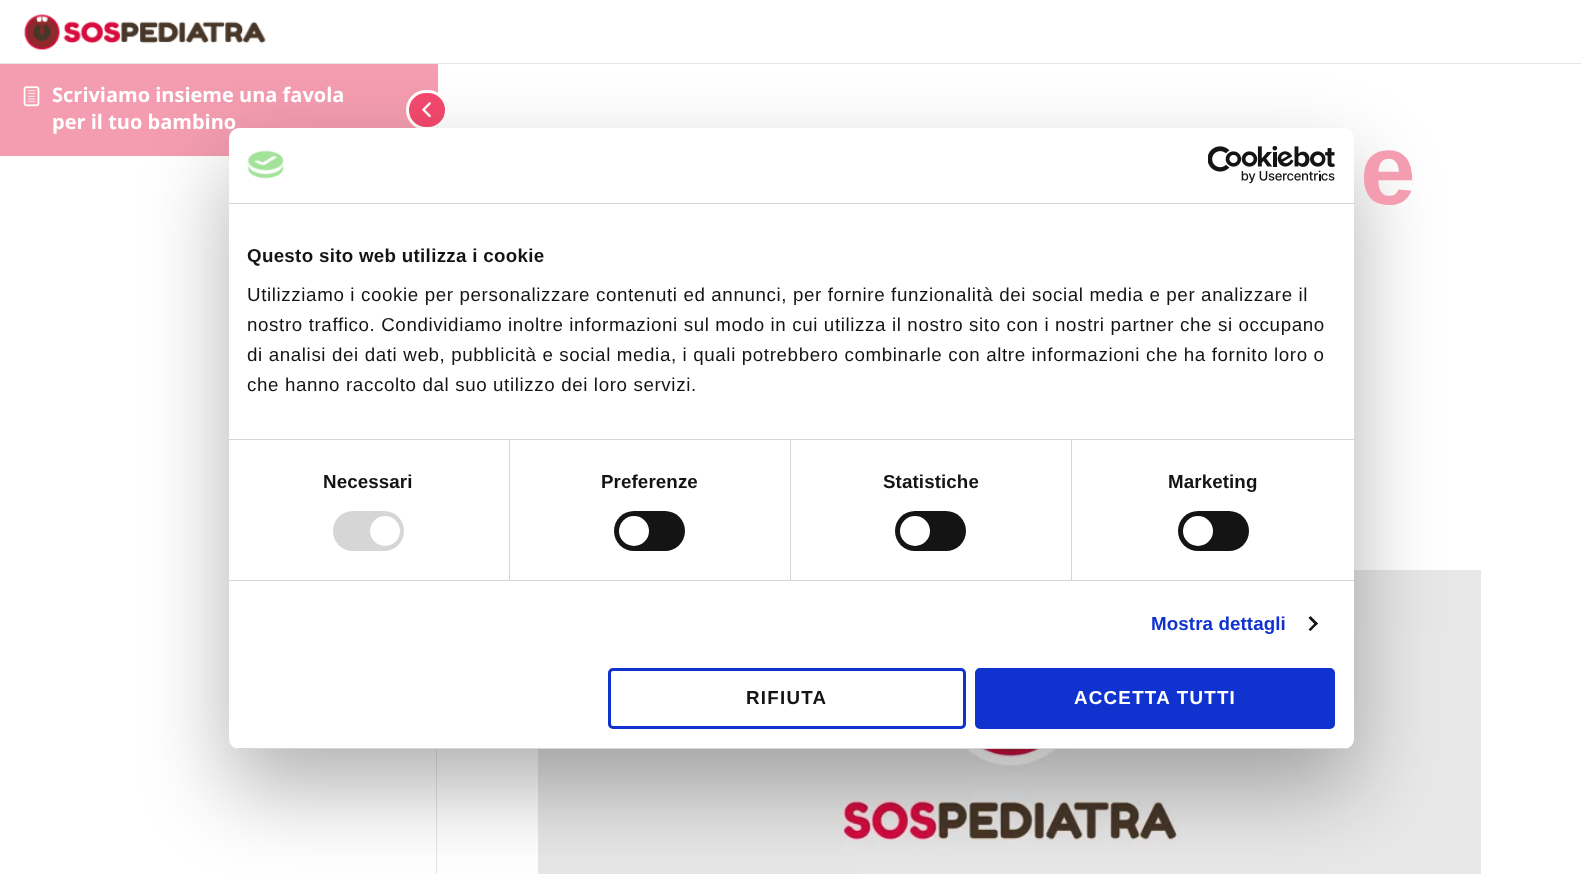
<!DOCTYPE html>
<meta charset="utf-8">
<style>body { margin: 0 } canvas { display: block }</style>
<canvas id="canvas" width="1581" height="874"></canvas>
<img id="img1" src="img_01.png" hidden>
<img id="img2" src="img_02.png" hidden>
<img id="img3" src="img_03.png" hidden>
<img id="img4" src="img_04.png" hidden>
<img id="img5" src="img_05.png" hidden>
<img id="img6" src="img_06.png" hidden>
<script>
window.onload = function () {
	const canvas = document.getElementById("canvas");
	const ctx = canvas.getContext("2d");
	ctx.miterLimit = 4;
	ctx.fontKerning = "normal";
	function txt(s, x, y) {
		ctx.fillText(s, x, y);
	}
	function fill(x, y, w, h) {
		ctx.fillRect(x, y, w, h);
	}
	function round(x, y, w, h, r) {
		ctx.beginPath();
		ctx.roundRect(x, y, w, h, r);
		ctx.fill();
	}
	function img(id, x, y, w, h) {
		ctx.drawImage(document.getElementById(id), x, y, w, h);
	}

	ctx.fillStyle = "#FFFFFF";
	fill(0, 0, 1581, 874);
	ctx.fillStyle = "#E2E7ED";
	fill(436, 749, 1, 125);
	ctx.fillStyle = "#F49DB0";
	fill(0, 64, 438, 92);
	img("img1", 23, 86, 17, 21);
	ctx.fillStyle = "#F4496E";
	ctx.beginPath();
	ctx.roundRect(407.5, 91.5, 39, 37, 18.5);
	ctx.fill();
	ctx.strokeStyle = "#FFFFFF";
	ctx.lineWidth = 3;
	ctx.stroke();
	img("img2", 422, 102, 9, 16);
	ctx.fillStyle = "#E2E7ED";
	fill(0, 63, 1581, 1);
	img("img3", 24, 14, 242, 37);
	img("img4", 538, 570, 943, 304);
	ctx.fillStyle = "rgba(0, 0, 0, 0.3)";
	ctx.filter = "blur(42.5px)";
	ctx.beginPath();
	ctx.roundRect(229, 168, 1125, 621, 10);
	ctx.fill();
	ctx.filter = "none";
	ctx.fillStyle = "#FFFFFF";
	round(229, 128, 1125, 621, 10);
	ctx.fillStyle = "#D6D6D6";
	fill(229, 203, 1125, 1);
	img("img5", 247, 150, 37, 29);
	img("img6", 1208, 146, 127, 38);
	fill(229, 439, 1125, 1);
	fill(229, 580, 1125, 1);
	fill(509, 440, 1, 140);
	round(333, 511, 71, 40, 20);
	ctx.fillStyle = "#FFFFFF";
	ctx.beginPath();
	ctx.arc(385, 531, 15, 0, Math.PI * 2);
	ctx.fill();
	ctx.fillStyle = "#D6D6D6";
	fill(790, 440, 1, 140);
	ctx.fillStyle = "#141414";
	round(614, 511, 71, 40, 20);
	ctx.fillStyle = "#FFFFFF";
	ctx.beginPath();
	ctx.arc(634, 531, 15, 0, Math.PI * 2);
	ctx.fill();
	ctx.fillStyle = "#D6D6D6";
	fill(1071, 440, 1, 140);
	ctx.fillStyle = "#141414";
	round(895, 511, 71, 40, 20);
	ctx.fillStyle = "#FFFFFF";
	ctx.beginPath();
	ctx.arc(915, 531, 15, 0, Math.PI * 2);
	ctx.fill();
	ctx.fillStyle = "#141414";
	round(1178, 511, 71, 40, 20);
	ctx.fillStyle = "#FFFFFF";
	ctx.beginPath();
	ctx.arc(1198, 531, 15, 0, Math.PI * 2);
	ctx.fill();
	ctx.fillStyle = "#141414";
	ctx.beginPath();
	ctx.moveTo(1310.5, 616);
	ctx.lineTo(1318, 623.5);
	ctx.lineTo(1316, 625.5);
	ctx.lineTo(1308.5, 618);
	ctx.closePath();
	ctx.fill();
	ctx.beginPath();
	ctx.moveTo(1316, 622);
	ctx.lineTo(1318, 623.5);
	ctx.lineTo(1310.5, 631);
	ctx.lineTo(1308.5, 629.5);
	ctx.closePath();
	ctx.fill();
	ctx.save();
	ctx.beginPath();
	ctx.roundRect(229, 128, 1125, 621, 10);
	ctx.clip();
	ctx.fillStyle = "#D6D6D6";
	fill(229, 748, 1125, 1);
	ctx.restore();
	ctx.beginPath();
	ctx.roundRect(609.5, 669.5, 355, 58, 3.5);
	ctx.strokeStyle = "#1032CF";
	ctx.stroke();
	ctx.fillStyle = "#1032CF";
	ctx.beginPath();
	ctx.roundRect(976.5, 669.5, 357, 58, 3.5);
	ctx.fill();
	ctx.stroke();
	ctx.font = "bold 20px Open Sans";
	ctx.fillStyle = "#FFFFFF";
	txt("Scriviamo insieme una favola", 52, 102);
	txt("per il tuo bambino", 52, 129);
	ctx.font = "bold 100px Liberation Sans";
	ctx.fillStyle = "#F49DB0";
	txt("e", 1360, 204);
	ctx.letterSpacing = "0.3px";
	ctx.font = "bold 18.75px Liberation Sans";
	ctx.fillStyle = "#141414";
	txt("Questo sito web utilizza i cookie", 247, 262);
	ctx.letterSpacing = "0.62px";
	ctx.font = "18.75px Liberation Sans";
	txt("Utilizziamo i cookie per personalizzare contenuti ed annunci, per fornire funzionalità dei social media e per analizzare il", 247, 301);
	txt("nostro traffico. Condividiamo inoltre informazioni sul modo in cui utilizza il nostro sito con i nostri partner che si occupano", 247, 331);
	txt("di analisi dei dati web, pubblicità e social media, i quali potrebbero combinarle con altre informazioni che ha fornito loro o", 247, 361);
	txt("che hanno raccolto dal suo utilizzo dei loro servizi.", 247, 391);
	ctx.letterSpacing = "0.1px";
	ctx.font = "bold 18.75px Liberation Sans";
	txt("Necessari", 323, 488);
	txt("Preferenze", 601, 488);
	txt("Statistiche", 883, 488);
	txt("Marketing", 1168, 488);
	ctx.fillStyle = "#1032CF";
	txt("Mostra dettagli", 1151, 630);
	ctx.letterSpacing = "1.25px";
	ctx.fillStyle = "#141414";
	txt("RIFIUTA", 746, 704);
	ctx.fillStyle = "#FFFFFF";
	txt("ACCETTA TUTTI", 1074, 704);
};
</script>
